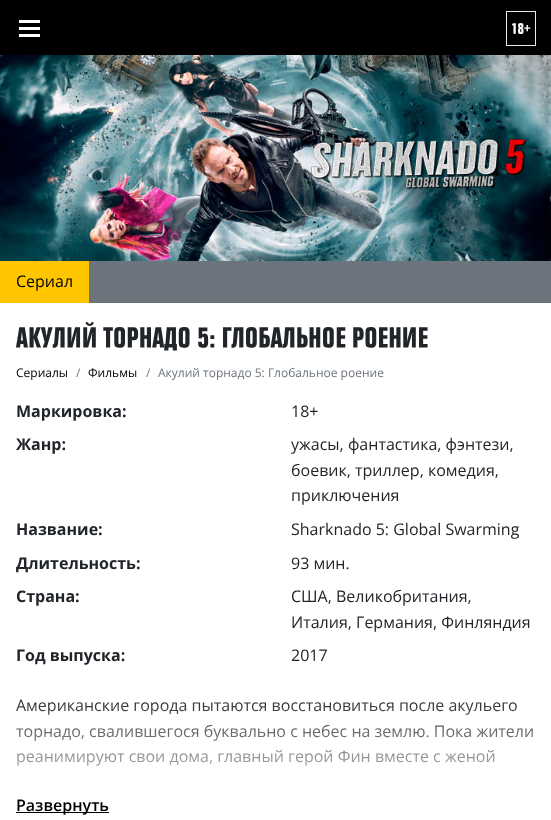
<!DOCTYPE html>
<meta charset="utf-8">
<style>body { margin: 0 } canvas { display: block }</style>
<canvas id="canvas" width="551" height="820"></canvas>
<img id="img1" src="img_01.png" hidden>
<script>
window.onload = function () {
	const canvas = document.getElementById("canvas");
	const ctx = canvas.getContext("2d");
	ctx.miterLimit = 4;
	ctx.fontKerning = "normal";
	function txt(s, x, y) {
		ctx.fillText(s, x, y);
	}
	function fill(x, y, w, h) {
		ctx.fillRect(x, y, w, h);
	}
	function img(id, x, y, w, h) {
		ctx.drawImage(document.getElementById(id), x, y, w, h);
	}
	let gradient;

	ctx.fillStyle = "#000000";
	fill(0, 0, 551, 820);
	ctx.fillStyle = "#FFFFFF";
	fill(19, 20, 21, 3);
	fill(19, 27, 21, 3);
	fill(19, 34, 21, 3);
	ctx.strokeStyle = "#EAEAEA";
	ctx.strokeRect(506.5, 11.5, 29, 34);
	fill(0, 303, 551, 517);
	img("img1", 0, 55, 551, 206);
	ctx.fillStyle = "#6C757D";
	fill(89, 261, 462, 42);
	ctx.fillStyle = "#FFC600";
	fill(0, 261, 89, 42);
	ctx.fillStyle = "#000000";
	fill(16, 812, 93, 1);
	ctx.font = "bold 16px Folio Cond";
	ctx.fillStyle = "#FFFFFF";
	txt("18+", 511, 33);
	ctx.font = "16px Open Sans";
	ctx.fillStyle = "#000000";
	txt("Сериал", 16, 287);
	ctx.font = "bold 30.25px Folio Cond";
	ctx.fillStyle = "#212529";
	txt("АКУЛИЙ ТОРНАДО 5: ГЛОБАЛЬНОЕ РОЕНИЕ", 16, 346);
	ctx.font = "12px Open Sans";
	ctx.fillStyle = "#000000";
	txt("Сериалы", 16, 377);
	ctx.fillStyle = "#6C757D";
	txt("/", 76, 377);
	ctx.fillStyle = "#000000";
	txt("Фильмы", 88, 377);
	ctx.fillStyle = "#6C757D";
	txt("/", 146, 377);
	txt("Акулий торнадо 5: Глобальное роение", 158, 377);
	ctx.font = "bold 16px Open Sans";
	ctx.fillStyle = "#212529";
	txt("Маркировка:", 16, 417);
	ctx.font = "16px Open Sans";
	txt("18+", 291, 417);
	ctx.font = "bold 16px Open Sans";
	txt("Жанр:", 16, 450);
	ctx.font = "16px Open Sans";
	txt("ужасы, фантастика, фэнтези,", 291, 450);
	txt("боевик, триллер, комедия,", 291, 476);
	txt("приключения", 291, 501);
	ctx.font = "bold 16px Open Sans";
	txt("Название:", 16, 535);
	ctx.font = "16px Open Sans";
	txt("Sharknado 5: Global Swarming", 291, 535);
	ctx.font = "bold 16px Open Sans";
	txt("Длительность:", 16, 569);
	ctx.font = "16px Open Sans";
	txt("93 мин.", 291, 569);
	ctx.font = "bold 16px Open Sans";
	txt("Страна:", 16, 602);
	ctx.font = "16px Open Sans";
	txt("США, Великобритания,", 291, 602);
	txt("Италия, Германия, Финляндия", 291, 628);
	ctx.font = "bold 16px Open Sans";
	txt("Год выпуска:", 16, 661);
	ctx.font = "16px Open Sans";
	txt("2017", 291, 661);
	txt("Американские города пытаются восстановиться после акульего", 16, 711);
	txt("торнадо, свалившегося буквально с небес на землю. Пока жители", 16, 737);
	txt("реанимируют свои дома, главный герой Фин вместе с женой", 16, 762);
	gradient = ctx.createLinearGradient(276, 693, 276, 793);
	gradient.addColorStop(0, "rgba(255, 255, 255, 0)");
	gradient.addColorStop(1, "rgba(255, 255, 255, 0.8)");
	ctx.fillStyle = gradient;
	fill(16, 699, 517, 67);
	ctx.font = "600 16px Open Sans";
	ctx.fillStyle = "#000000";
	txt("Развернуть", 16, 811);
};
</script>
